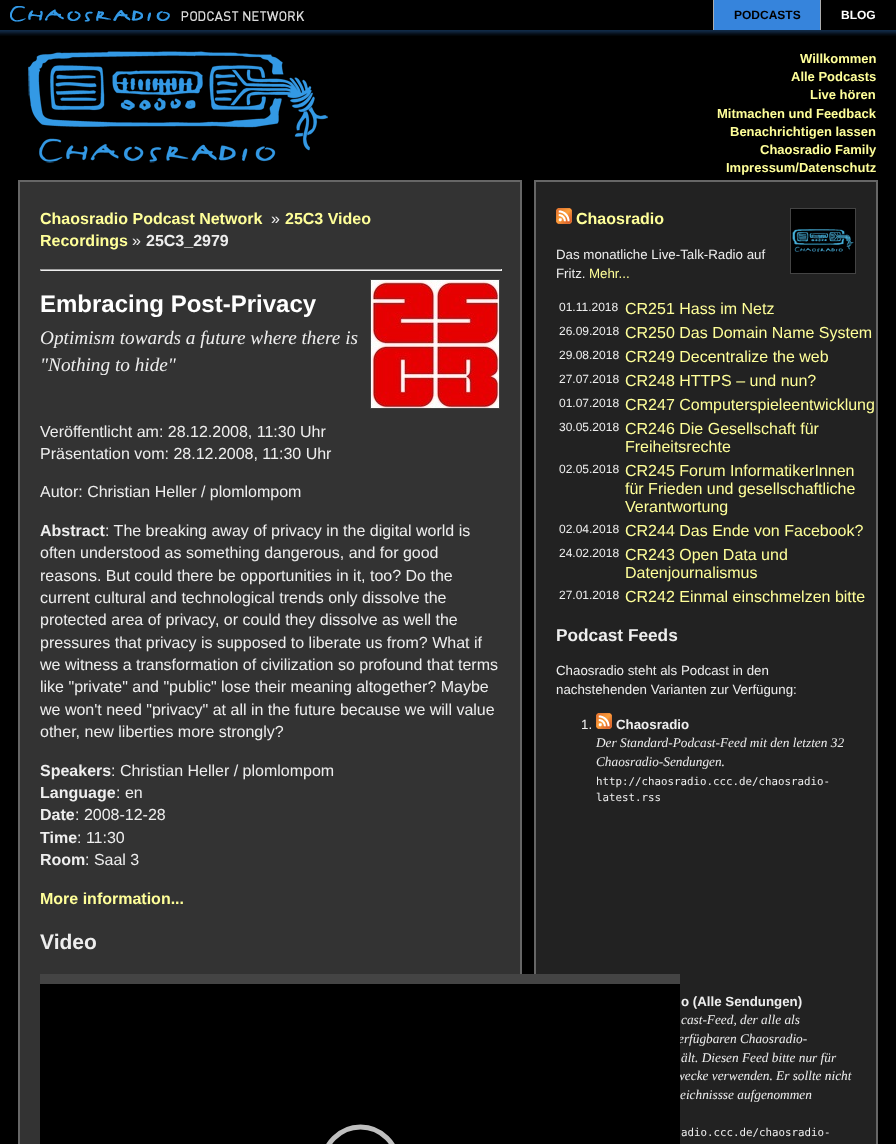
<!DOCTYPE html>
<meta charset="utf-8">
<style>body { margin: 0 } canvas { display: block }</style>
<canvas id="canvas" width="896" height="1144"></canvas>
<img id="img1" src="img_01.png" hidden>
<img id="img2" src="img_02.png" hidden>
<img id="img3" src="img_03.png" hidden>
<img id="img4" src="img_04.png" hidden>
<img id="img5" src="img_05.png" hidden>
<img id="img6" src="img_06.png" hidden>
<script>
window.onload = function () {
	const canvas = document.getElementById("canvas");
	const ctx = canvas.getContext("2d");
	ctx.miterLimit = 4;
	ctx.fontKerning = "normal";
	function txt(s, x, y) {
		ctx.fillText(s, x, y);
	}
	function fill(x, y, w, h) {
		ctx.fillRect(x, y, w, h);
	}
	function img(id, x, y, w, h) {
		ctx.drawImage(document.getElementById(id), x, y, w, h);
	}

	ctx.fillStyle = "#000000";
	fill(0, 0, 896, 1144);
	img("img1", 0, 30, 896, 6);
	img("img2", 10, 6, 295, 16);
	ctx.fillStyle = "#3684DC";
	fill(714, 0, 106, 30);
	ctx.fillStyle = "#ADADAD";
	fill(713, 0, 1, 30);
	fill(820, 0, 1, 30);
	img("img3", 28, 51, 300, 112);
	ctx.fillStyle = "#333333";
	ctx.beginPath();
	ctx.rect(19, 181, 502, 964);
	ctx.fill();
	ctx.strokeStyle = "#666666";
	ctx.lineWidth = 2;
	ctx.stroke();
	ctx.fillStyle = "#9F9F9F";
	fill(40, 269, 462, 1);
	ctx.fillStyle = "#EEEEEE";
	fill(501, 269, 1, 2);
	fill(40, 270, 462, 1);
	ctx.fillStyle = "#9F9F9F";
	fill(40, 269, 1, 2);
	ctx.strokeStyle = "#444444";
	ctx.lineWidth = 1;
	ctx.strokeRect(370.5, 279.5, 129, 129);
	img("img4", 371, 280, 128, 128);
	ctx.fillStyle = "#222222";
	ctx.beginPath();
	ctx.rect(535, 181, 342, 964);
	ctx.fill();
	ctx.strokeStyle = "#666666";
	ctx.lineWidth = 2;
	ctx.stroke();
	ctx.fillStyle = "#444444";
	fill(40, 974, 640, 10);
	img("img5", 556, 208, 16, 16);
	ctx.strokeStyle = "#444444";
	ctx.lineWidth = 1;
	ctx.strokeRect(790.5, 208.5, 65, 65);
	img("img6", 791, 209, 64, 64);
	img("img5", 596, 713, 16, 16);
	ctx.font = "bold 12px Liberation Sans";
	ctx.fillStyle = "#000000";
	txt("PODCASTS", 734, 19);
	ctx.fillStyle = "#FFFFFF";
	txt("BLOG", 841, 19);
	ctx.font = "bold 13px Liberation Sans";
	ctx.fillStyle = "#FFFF99";
	txt("Willkommen", 800, 63);
	txt("Alle Podcasts", 791, 81);
	txt("Live hören", 810, 99);
	txt("Mitmachen und Feedback", 717, 118);
	txt("Benachrichtigen lassen", 730, 136);
	txt("Chaosradio Family", 760, 154);
	txt("Impressum/Datenschutz", 726, 172);
	ctx.font = "bold 16px Liberation Sans";
	txt("Chaosradio Podcast Network", 40, 224);
	ctx.font = "16px Liberation Sans";
	ctx.fillStyle = "#EEEEEE";
	txt("»", 271, 224);
	ctx.font = "bold 16px Liberation Sans";
	ctx.fillStyle = "#FFFF99";
	txt("25C3 Video", 285, 224);
	txt("Recordings", 40, 246);
	ctx.font = "16px Liberation Sans";
	ctx.fillStyle = "#EEEEEE";
	txt("»", 132, 246);
	ctx.font = "bold 16px Liberation Sans";
	txt("25C3_2979", 146, 246);
	ctx.font = "bold 24px Liberation Sans";
	ctx.fillStyle = "#FFFFFF";
	txt("Embracing Post-Privacy", 40, 312);
	ctx.font = "italic 19.25px Liberation Serif";
	ctx.fillStyle = "#EEEEEE";
	txt("Optimism towards a future where there is", 40, 344);
	txt("\"Nothing to hide\"", 40, 371);
	ctx.font = "16px Liberation Sans";
	txt("Veröffentlicht am: 28.12.2008, 11:30 Uhr", 40, 437);
	txt("Präsentation vom: 28.12.2008, 11:30 Uhr", 40, 459);
	txt("Autor: Christian Heller / plomlompom", 40, 497);
	ctx.font = "bold 16px Liberation Sans";
	txt("Abstract", 40, 536);
	ctx.font = "16px Liberation Sans";
	txt(": The breaking away of privacy in the digital world is", 105, 536);
	txt("often understood as something dangerous, and for good", 40, 558);
	txt("reasons. But could there be opportunities in it, too? Do the", 40, 581);
	txt("current cultural and technological trends only dissolve the", 40, 603);
	txt("protected area of privacy, or could they dissolve as well the", 40, 625);
	txt("pressures that privacy is supposed to liberate us from? What if", 40, 648);
	txt("we witness a transformation of civilization so profound that terms", 40, 670);
	txt("like \"private\" and \"public\" lose their meaning altogether? Maybe", 40, 692);
	txt("we won't need \"privacy\" at all in the future because we will value", 40, 715);
	txt("other, new liberties more strongly?", 40, 737);
	ctx.font = "bold 16px Liberation Sans";
	txt("Speakers", 40, 776);
	ctx.font = "16px Liberation Sans";
	txt(": Christian Heller / plomlompom", 111, 776);
	ctx.font = "bold 16px Liberation Sans";
	txt("Language", 40, 798);
	ctx.font = "16px Liberation Sans";
	txt(": en", 116, 798);
	ctx.font = "bold 16px Liberation Sans";
	txt("Date", 40, 820);
	ctx.font = "16px Liberation Sans";
	txt(": 2008-12-28", 75, 820);
	ctx.font = "bold 16px Liberation Sans";
	txt("Time", 40, 843);
	ctx.font = "16px Liberation Sans";
	txt(": 11:30", 77, 843);
	ctx.font = "bold 16px Liberation Sans";
	txt("Room", 40, 865);
	ctx.font = "16px Liberation Sans";
	txt(": Saal 3", 85, 865);
	ctx.font = "bold 16px Liberation Sans";
	ctx.fillStyle = "#FFFF99";
	txt("More information...", 40, 904);
	ctx.font = "bold 21px Liberation Sans";
	ctx.fillStyle = "#EEEEEE";
	txt("Video", 40, 949);
	ctx.font = "bold 16px Liberation Sans";
	ctx.fillStyle = "#FFFF99";
	txt("Chaosradio", 576, 224);
	ctx.font = "13.3px Liberation Sans";
	ctx.fillStyle = "#EEEEEE";
	txt("Das monatliche Live-Talk-Radio auf", 556, 259);
	txt("Fritz.", 556, 278);
	ctx.fillStyle = "#FFFF99";
	txt("Mehr...", 589, 278);
	ctx.font = "12px Liberation Sans";
	ctx.fillStyle = "#EEEEEE";
	txt("01.11.2018", 559, 311);
	ctx.font = "16px Liberation Sans";
	ctx.fillStyle = "#FFFF99";
	txt("CR251 Hass im Netz", 625, 314);
	ctx.font = "12px Liberation Sans";
	ctx.fillStyle = "#EEEEEE";
	txt("26.09.2018", 559, 335);
	ctx.font = "16px Liberation Sans";
	ctx.fillStyle = "#FFFF99";
	txt("CR250 Das Domain Name System", 625, 338);
	ctx.font = "12px Liberation Sans";
	ctx.fillStyle = "#EEEEEE";
	txt("29.08.2018", 559, 359);
	ctx.font = "16px Liberation Sans";
	ctx.fillStyle = "#FFFF99";
	txt("CR249 Decentralize the web", 625, 362);
	ctx.font = "12px Liberation Sans";
	ctx.fillStyle = "#EEEEEE";
	txt("27.07.2018", 559, 383);
	ctx.font = "16px Liberation Sans";
	ctx.fillStyle = "#FFFF99";
	txt("CR248 HTTPS – und nun?", 625, 386);
	ctx.font = "12px Liberation Sans";
	ctx.fillStyle = "#EEEEEE";
	txt("01.07.2018", 559, 407);
	ctx.font = "16px Liberation Sans";
	ctx.fillStyle = "#FFFF99";
	txt("CR247 Computerspieleentwicklung", 625, 410);
	ctx.font = "12px Liberation Sans";
	ctx.fillStyle = "#EEEEEE";
	txt("30.05.2018", 559, 431);
	ctx.font = "16px Liberation Sans";
	ctx.fillStyle = "#FFFF99";
	txt("CR246 Die Gesellschaft für", 625, 434);
	txt("Freiheitsrechte", 625, 452);
	ctx.font = "12px Liberation Sans";
	ctx.fillStyle = "#EEEEEE";
	txt("02.05.2018", 559, 473);
	ctx.font = "16px Liberation Sans";
	ctx.fillStyle = "#FFFF99";
	txt("CR245 Forum InformatikerInnen", 625, 476);
	txt("für Frieden und gesellschaftliche", 625, 494);
	txt("Verantwortung", 625, 512);
	ctx.font = "12px Liberation Sans";
	ctx.fillStyle = "#EEEEEE";
	txt("02.04.2018", 559, 533);
	ctx.font = "16px Liberation Sans";
	ctx.fillStyle = "#FFFF99";
	txt("CR244 Das Ende von Facebook?", 625, 536);
	ctx.font = "12px Liberation Sans";
	ctx.fillStyle = "#EEEEEE";
	txt("24.02.2018", 559, 557);
	ctx.font = "16px Liberation Sans";
	ctx.fillStyle = "#FFFF99";
	txt("CR243 Open Data und", 625, 560);
	txt("Datenjournalismus", 625, 578);
	ctx.font = "12px Liberation Sans";
	ctx.fillStyle = "#EEEEEE";
	txt("27.01.2018", 559, 599);
	ctx.font = "16px Liberation Sans";
	ctx.fillStyle = "#FFFF99";
	txt("CR242 Einmal einschmelzen bitte", 625, 602);
	ctx.font = "bold 17.25px Liberation Sans";
	ctx.fillStyle = "#EEEEEE";
	txt("Podcast Feeds", 556, 641);
	ctx.font = "13.3px Liberation Sans";
	txt("Chaosradio steht als Podcast in den", 556, 675);
	txt("nachstehenden Varianten zur Verfügung:", 556, 694);
	txt("1.", 581, 729);
	ctx.font = "bold 13.3px Liberation Sans";
	txt("Chaosradio", 616, 729);
	ctx.font = "italic 13.3px Liberation Serif";
	txt("Der Standard-Podcast-Feed mit den letzten 32", 596, 747);
	txt("Chaosradio-Sendungen.", 596, 766);
	ctx.font = "10.8px DejaVu Sans Mono";
	txt("http://chaosradio.ccc.de/chaosradio-", 596, 785);
	txt("latest.rss", 596, 801);
	ctx.font = "bold 13.3px Liberation Sans";
	txt("o (Alle Sendungen)", 681, 1006);
	ctx.font = "italic 13.3px Liberation Serif";
	txt("cast-Feed, der alle als", 681, 1024);
	txt("erfügbaren Chaosradio-", 678, 1043);
	txt("ält. Diesen Feed bitte nur für", 681, 1062);
	txt("wecke verwenden. Er sollte nicht", 676, 1080);
	ctx.fillStyle = "#000000";
	fill(40, 984, 640, 160);
	ctx.beginPath();
	ctx.moveTo(323, 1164.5);
	ctx.bezierCurveTo(323, 1144, 340, 1127, 360.5, 1127);
	ctx.bezierCurveTo(381, 1127, 398, 1144, 398, 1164.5);
	ctx.bezierCurveTo(398, 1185, 381, 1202, 360.5, 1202);
	ctx.bezierCurveTo(340, 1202, 323, 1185, 323, 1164.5);
	ctx.closePath();
	ctx.strokeStyle = "#BFBFBF";
	ctx.lineWidth = 5;
	ctx.stroke();
	ctx.fillStyle = "#EEEEEE";
	txt("eichnissse aufgenommen", 680, 1099);
	ctx.font = "10.8px DejaVu Sans Mono";
	txt("adio.ccc.de/chaosradio-", 681, 1136);
};
</script>
